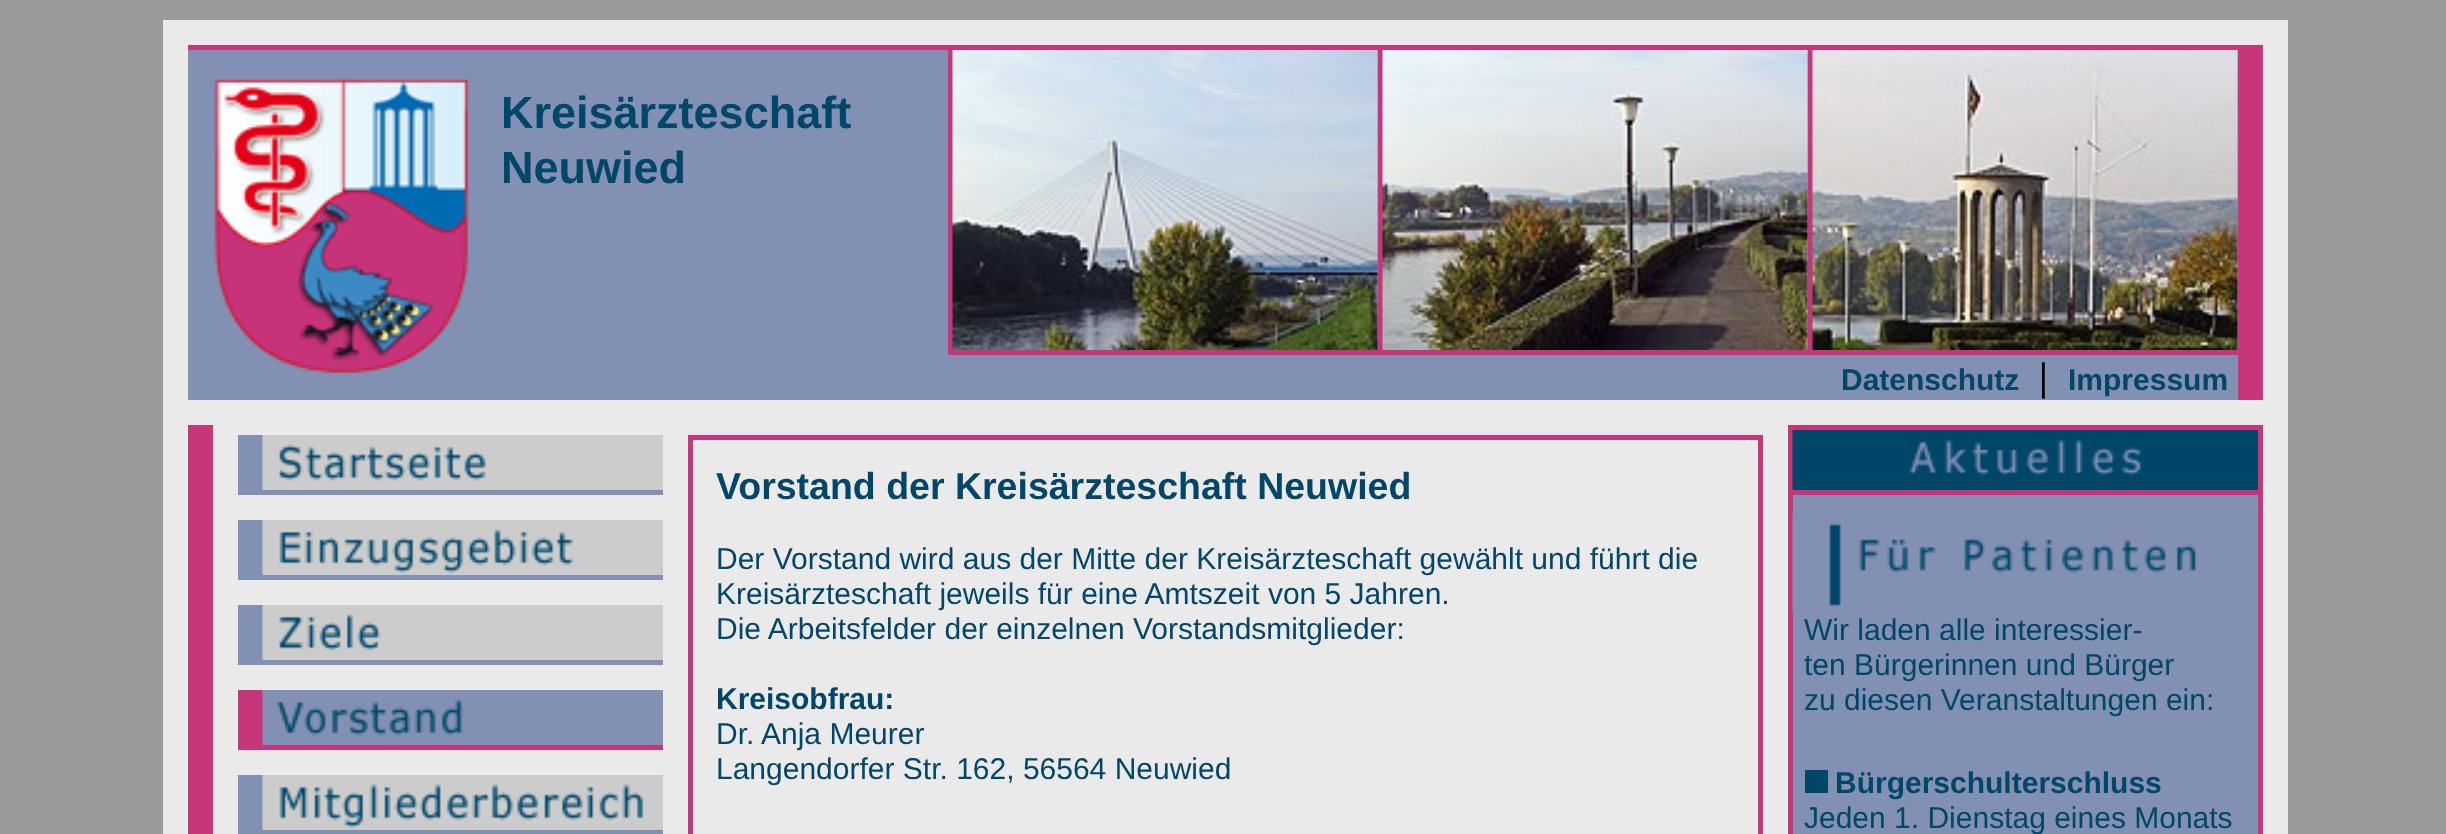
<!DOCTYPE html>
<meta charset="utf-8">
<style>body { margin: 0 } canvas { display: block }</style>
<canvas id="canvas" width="2446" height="834"></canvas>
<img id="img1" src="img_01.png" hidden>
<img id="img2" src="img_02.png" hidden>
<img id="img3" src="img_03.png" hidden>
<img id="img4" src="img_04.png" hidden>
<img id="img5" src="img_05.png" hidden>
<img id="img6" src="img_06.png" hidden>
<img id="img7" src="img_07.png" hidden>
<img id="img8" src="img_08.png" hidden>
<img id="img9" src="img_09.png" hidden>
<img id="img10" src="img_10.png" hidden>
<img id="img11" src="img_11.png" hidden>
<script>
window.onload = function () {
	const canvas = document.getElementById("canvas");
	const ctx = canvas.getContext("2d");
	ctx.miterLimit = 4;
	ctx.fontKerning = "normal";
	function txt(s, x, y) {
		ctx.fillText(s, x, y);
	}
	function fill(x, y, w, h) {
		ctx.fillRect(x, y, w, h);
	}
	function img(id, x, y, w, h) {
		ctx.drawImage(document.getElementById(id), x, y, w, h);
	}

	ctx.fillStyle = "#999999";
	fill(0, 0, 2446, 834);
	ctx.fillStyle = "#EAEAEA";
	fill(163, 20, 2125, 814);
	ctx.fillStyle = "#C63678";
	fill(188, 45, 2075, 5);
	ctx.fillStyle = "#8190B3";
	fill(188, 50, 2050, 350);
	img("img1", 214, 79, 255, 295);
	ctx.fillStyle = "#C63678";
	fill(2238, 50, 25, 350);
	fill(948, 50, 5, 300);
	img("img2", 952, 50, 426, 300);
	fill(1378, 50, 5, 300);
	img("img3", 1382, 50, 426, 300);
	fill(1808, 50, 5, 300);
	img("img4", 1812, 50, 426, 300);
	fill(948, 350, 1290, 5);
	fill(188, 425, 25, 409);
	ctx.fillStyle = "#8190B3";
	fill(238, 435, 25, 60);
	ctx.fillStyle = "#CCCCCC";
	fill(486, 435, 177, 55);
	img("img5", 262, 435, 224, 55);
	ctx.fillStyle = "#8190B3";
	fill(263, 490, 400, 5);
	fill(238, 520, 25, 60);
	ctx.fillStyle = "#CCCCCC";
	fill(574, 520, 89, 55);
	img("img6", 262, 520, 312, 55);
	ctx.fillStyle = "#8190B3";
	fill(263, 575, 400, 5);
	fill(238, 605, 25, 60);
	ctx.fillStyle = "#CCCCCC";
	fill(381, 605, 282, 55);
	img("img7", 262, 605, 119, 55);
	ctx.fillStyle = "#8190B3";
	fill(263, 660, 400, 5);
	ctx.fillStyle = "#C63678";
	fill(238, 690, 25, 60);
	ctx.fillStyle = "#8190B3";
	fill(463, 690, 200, 55);
	img("img8", 262, 690, 201, 55);
	ctx.fillStyle = "#C63678";
	fill(263, 745, 400, 5);
	ctx.fillStyle = "#8190B3";
	fill(238, 775, 25, 59);
	ctx.fillStyle = "#CCCCCC";
	fill(644, 775, 19, 55);
	img("img9", 262, 775, 382, 55);
	ctx.fillStyle = "#8190B3";
	fill(263, 830, 400, 4);
	ctx.strokeStyle = "#C63678";
	ctx.lineWidth = 5;
	ctx.strokeRect(690.5, 437.5, 1070, 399);
	ctx.strokeRect(1790.5, 427.5, 470, 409);
	ctx.fillStyle = "#004669";
	fill(2141, 430, 117, 60);
	img("img10", 1792, 430, 349, 60);
	ctx.fillStyle = "#C63678";
	fill(1793, 490, 465, 5);
	ctx.fillStyle = "#8190B3";
	fill(1793, 495, 465, 339);
	img("img11", 1792, 512, 404, 101);
	ctx.fillStyle = "#004669";
	fill(1805, 770, 23, 23);
	ctx.font = "bold 45px Liberation Sans";
	txt("Kreisärzteschaft", 501, 128);
	txt("Neuwied", 501, 183);
	ctx.font = "bold 30px Liberation Sans";
	txt("Datenschutz", 1841, 390);
	ctx.font = "bold 40px Liberation Serif";
	ctx.fillStyle = "#000000";
	txt("|", 2039, 390);
	ctx.font = "bold 30px Liberation Sans";
	ctx.fillStyle = "#004669";
	txt("Impressum", 2068, 390);
	ctx.font = "bold 37.5px Liberation Sans";
	txt("Vorstand der Kreisärzteschaft Neuwied", 716, 499);
	ctx.font = "30px Liberation Sans";
	txt("Der Vorstand wird aus der Mitte der Kreisärzteschaft gewählt und führt die", 716, 569);
	txt("Kreisärzteschaft jeweils für eine Amtszeit von 5 Jahren.", 716, 604);
	txt("Die Arbeitsfelder der einzelnen Vorstandsmitglieder:", 716, 639);
	ctx.font = "bold 30px Liberation Sans";
	txt("Kreisobfrau:", 716, 709);
	ctx.font = "30px Liberation Sans";
	txt("Dr. Anja Meurer", 716, 744);
	txt("Langendorfer Str. 162, 56564 Neuwied", 716, 779);
	txt("Wir laden alle interessier-", 1804, 640);
	txt("ten Bürgerinnen und Bürger", 1804, 675);
	txt("zu diesen Veranstaltungen ein:", 1804, 710);
	ctx.font = "bold 30px Liberation Sans";
	txt("Bürgerschulterschluss", 1835, 793);
	ctx.font = "30px Liberation Sans";
	txt("Jeden 1. Dienstag eines Monats", 1804, 828);
};
</script>
